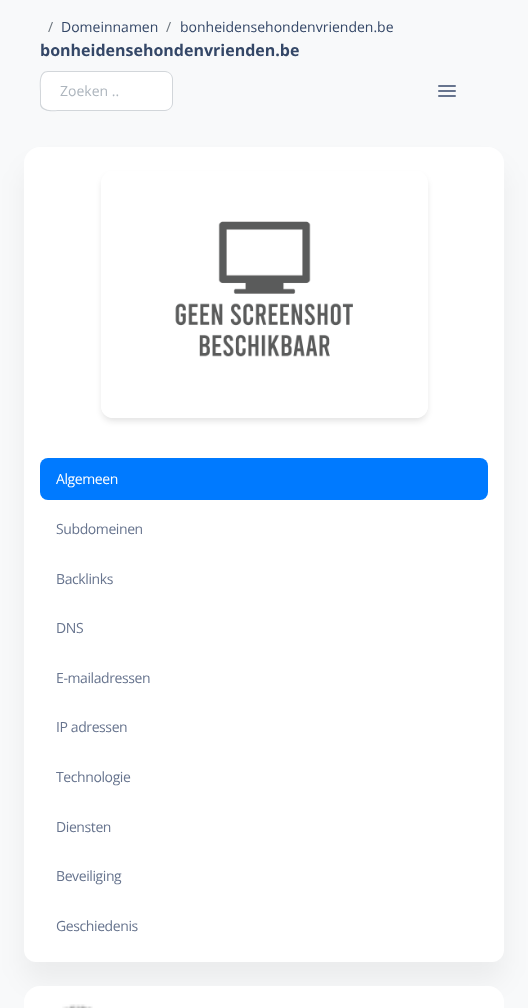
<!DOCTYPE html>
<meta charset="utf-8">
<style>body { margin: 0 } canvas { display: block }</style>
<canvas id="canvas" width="528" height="1008"></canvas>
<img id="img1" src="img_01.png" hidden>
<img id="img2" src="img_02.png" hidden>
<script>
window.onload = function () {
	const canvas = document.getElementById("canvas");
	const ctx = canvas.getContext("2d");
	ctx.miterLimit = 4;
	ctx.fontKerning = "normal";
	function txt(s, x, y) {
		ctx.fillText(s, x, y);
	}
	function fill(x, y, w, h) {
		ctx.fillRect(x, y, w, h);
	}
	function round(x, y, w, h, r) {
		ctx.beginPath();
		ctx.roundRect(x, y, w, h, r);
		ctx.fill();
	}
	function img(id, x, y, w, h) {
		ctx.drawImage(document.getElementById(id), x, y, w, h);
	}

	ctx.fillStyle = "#F8F9FA";
	fill(0, 0, 528, 1008);
	ctx.fillStyle = "#FFFFFF";
	ctx.beginPath();
	ctx.roundRect(40, 71, 21, 40, [8, 0, 0, 8]);
	ctx.fill();
	ctx.fillStyle = "#D2D6DA";
	ctx.beginPath();
	ctx.moveTo(48, 71);
	ctx.lineTo(61, 71);
	ctx.lineTo(61, 111);
	ctx.bezierCurveTo(54, 111, 42, 113, 40, 105);
	ctx.lineTo(40, 91);
	ctx.bezierCurveTo(40, 84, 38, 71, 48, 71);
	ctx.closePath();
	ctx.moveTo(48, 72);
	ctx.lineTo(61, 72);
	ctx.lineTo(61, 110);
	ctx.bezierCurveTo(55, 110, 43, 112, 41, 104);
	ctx.lineTo(41, 91);
	ctx.bezierCurveTo(41, 85, 39, 72, 48, 72);
	ctx.closePath();
	ctx.fill("evenodd");
	ctx.fillStyle = "#FFFFFF";
	ctx.beginPath();
	ctx.roundRect(60, 72, 112, 38, [0, 7, 7, 0]);
	ctx.fill();
	ctx.fillStyle = "#D2D6DA";
	ctx.beginPath();
	ctx.moveTo(60, 71);
	ctx.lineTo(165, 71);
	ctx.bezierCurveTo(169, 71, 173, 75, 173, 79);
	ctx.lineTo(173, 103);
	ctx.bezierCurveTo(173, 107, 169, 111, 165, 111);
	ctx.lineTo(60, 111);
	ctx.closePath();
	ctx.moveTo(60, 72);
	ctx.lineTo(165, 72);
	ctx.bezierCurveTo(169, 72, 172, 75, 172, 79);
	ctx.lineTo(172, 103);
	ctx.bezierCurveTo(172, 107, 169, 110, 165, 110);
	ctx.lineTo(60, 110);
	ctx.closePath();
	ctx.fill("evenodd");
	ctx.fillStyle = "#67748E";
	round(438, 85, 18, 2, 1);
	round(438, 90, 18, 2, 1);
	round(438, 95, 18, 2, 1);
	ctx.fillStyle = "rgba(0, 0, 0, 0.05)";
	ctx.filter = "blur(13.5px)";
	ctx.beginPath();
	ctx.roundRect(24, 167, 480, 815, 16);
	ctx.fill();
	ctx.filter = "none";
	ctx.fillStyle = "#FFFFFF";
	round(24, 147, 480, 815, 16);
	ctx.save();
	ctx.beginPath();
	ctx.moveTo(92, 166);
	ctx.lineTo(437, 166);
	ctx.lineTo(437, 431);
	ctx.lineTo(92, 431);
	ctx.closePath();
	ctx.moveTo(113, 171);
	ctx.lineTo(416, 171);
	ctx.bezierCurveTo(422.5, 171, 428, 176.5, 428, 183);
	ctx.lineTo(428, 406);
	ctx.bezierCurveTo(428, 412.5, 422.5, 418, 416, 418);
	ctx.lineTo(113, 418);
	ctx.bezierCurveTo(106.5, 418, 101, 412.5, 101, 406);
	ctx.lineTo(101, 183);
	ctx.bezierCurveTo(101, 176.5, 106.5, 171, 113, 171);
	ctx.closePath();
	ctx.clip("evenodd");
	ctx.fillStyle = "rgba(20, 20, 20, 0.12)";
	ctx.filter = "blur(3px)";
	ctx.beginPath();
	ctx.roundRect(102, 176, 325, 245, 11);
	ctx.fill();
	ctx.filter = "none";
	ctx.restore();
	img("img1", 101, 221, 327, 197);
	round(24, 442, 480, 520, 12);
	ctx.fillStyle = "#007AFF";
	round(40, 458, 448, 42, 8);
	ctx.fillStyle = "#FFFFFF";
	round(24, 986, 480, 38, 16);
	img("img2", 62, 1004, 31, 4);
	ctx.font = "14px Open Sans";
	ctx.fillStyle = "#6C757D";
	txt("/", 48, 32);
	ctx.fillStyle = "#344767";
	txt("Domeinnamen", 61, 32);
	ctx.fillStyle = "#6C757D";
	txt("/", 166, 32);
	ctx.fillStyle = "#344767";
	txt("bonheidensehondenvrienden.be", 180, 32);
	ctx.font = "bold 16px Open Sans";
	txt("bonheidensehondenvrienden.be", 40, 56);
	ctx.font = "14px Open Sans";
	ctx.fillStyle = "#ADB5BD";
	txt("Zoeken ..", 60, 96);
	ctx.letterSpacing = "-0.4px";
	ctx.fillStyle = "#FFFFFF";
	txt("Algemeen", 56, 484);
	ctx.fillStyle = "#67748E";
	txt("Subdomeinen", 56, 534);
	txt("Backlinks", 56, 584);
	txt("DNS", 56, 633);
	txt("E-mailadressen", 56, 683);
	txt("IP adressen", 56, 732);
	txt("Technologie", 56, 782);
	txt("Diensten", 56, 832);
	txt("Beveiliging", 56, 881);
	txt("Geschiedenis", 56, 931);
};
</script>
